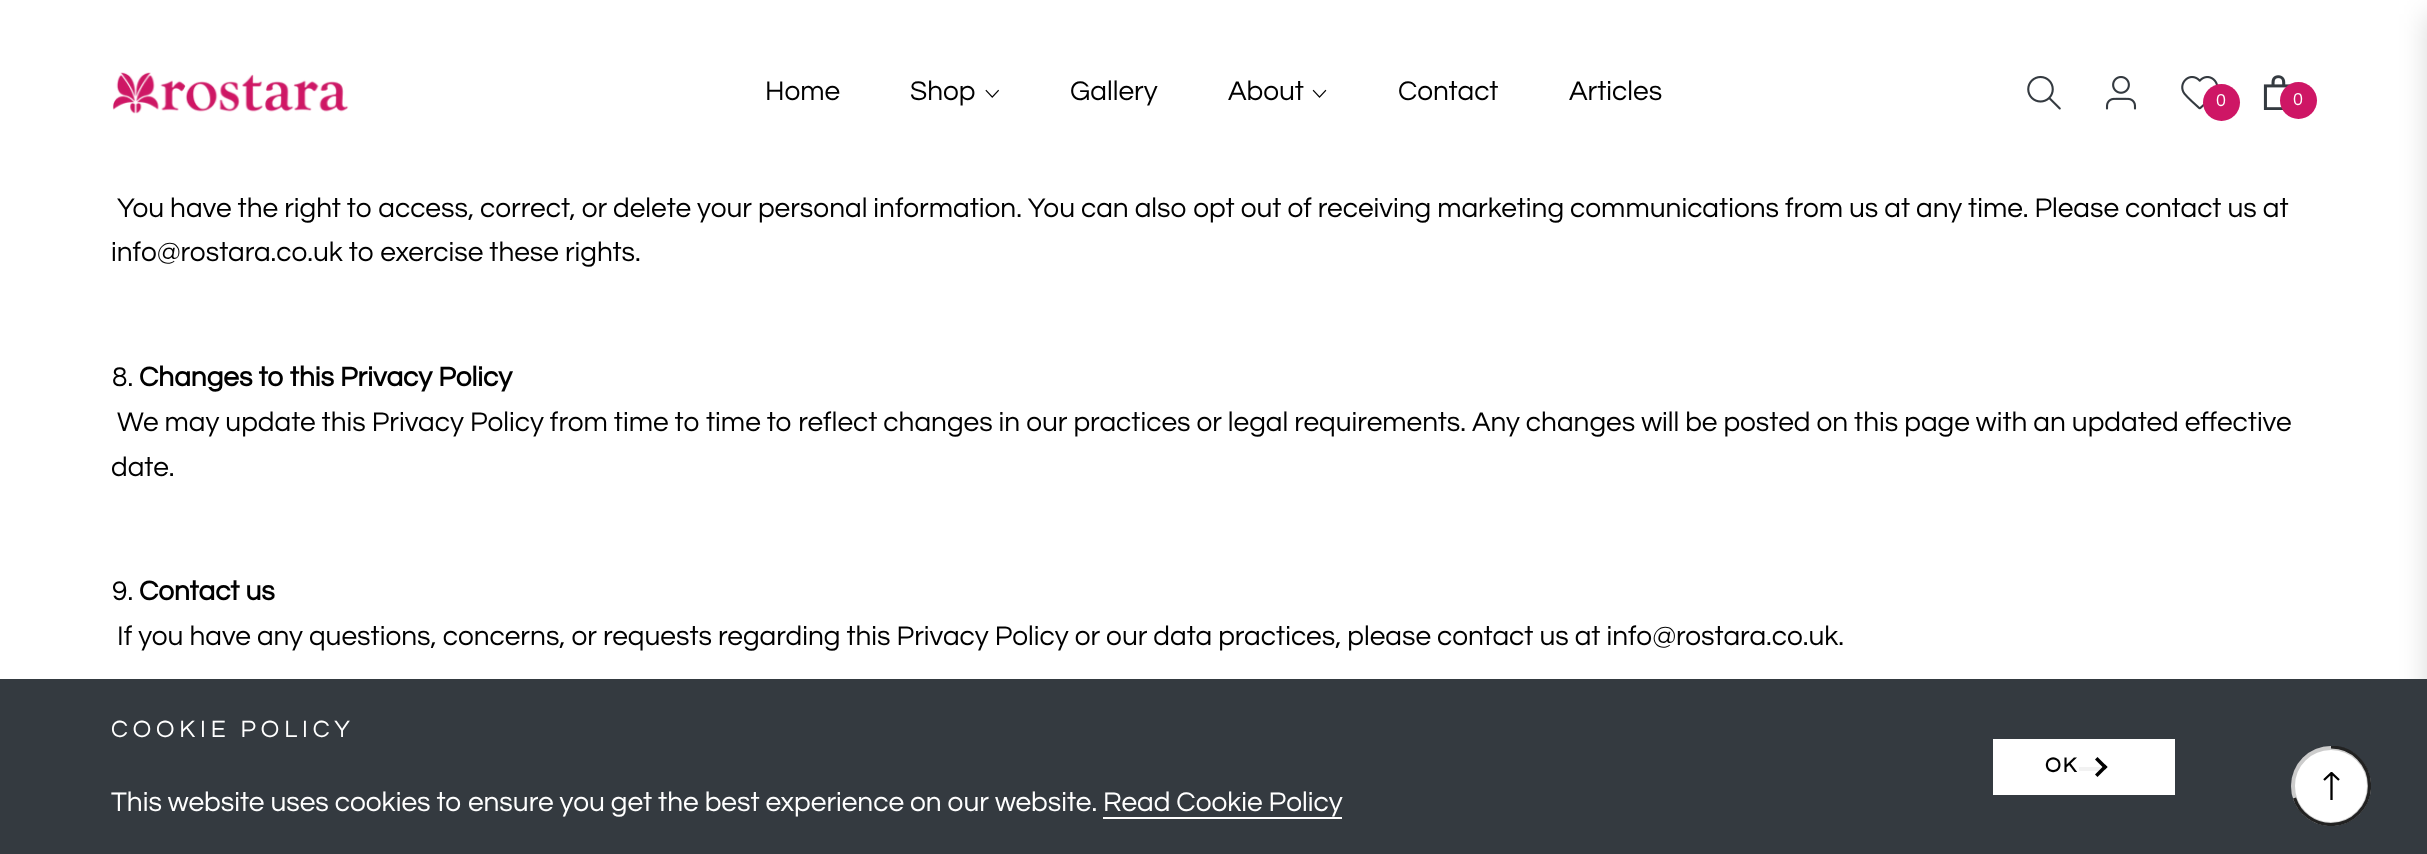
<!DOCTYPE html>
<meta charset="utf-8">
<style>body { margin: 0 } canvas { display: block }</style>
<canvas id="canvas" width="2427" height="854"></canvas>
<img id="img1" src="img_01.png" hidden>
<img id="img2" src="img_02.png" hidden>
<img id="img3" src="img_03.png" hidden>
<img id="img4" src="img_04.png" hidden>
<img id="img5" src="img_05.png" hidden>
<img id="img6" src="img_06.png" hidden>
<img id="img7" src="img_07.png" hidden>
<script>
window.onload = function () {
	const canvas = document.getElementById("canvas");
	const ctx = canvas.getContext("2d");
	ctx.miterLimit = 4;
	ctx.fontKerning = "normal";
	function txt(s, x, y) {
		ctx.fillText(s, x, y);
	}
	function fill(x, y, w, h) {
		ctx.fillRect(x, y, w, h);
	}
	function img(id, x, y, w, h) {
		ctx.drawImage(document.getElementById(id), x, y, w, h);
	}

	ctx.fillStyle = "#FFFFFF";
	fill(0, 0, 2427, 854);
	img("img1", 112, 72, 237, 42);
	img("img2", 985, 89, 14, 9);
	img("img3", 1312, 89, 15, 9);
	img("img4", 2027, 75, 34, 35);
	img("img5", 2105, 76, 32, 34);
	img("img6", 2181, 76, 37, 34);
	ctx.fillStyle = "#CE1665";
	ctx.beginPath();
	ctx.arc(2221.5, 102.5, 18.5, 0, Math.PI * 2);
	ctx.fill();
	img("img7", 2263, 75, 27, 35);
	ctx.beginPath();
	ctx.arc(2298.5, 100.5, 18.5, 0, Math.PI * 2);
	ctx.fill();
	ctx.fillStyle = "rgba(0, 0, 0, 0.15)";
	ctx.filter = "blur(14px)";
	ctx.beginPath();
	ctx.rect(2427, 14, 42, 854);
	ctx.fill();
	ctx.filter = "none";
	ctx.fillStyle = "#343A40";
	fill(0, 679, 2427, 175);
	ctx.fillStyle = "#FFFFFF";
	fill(1103, 817, 239, 2);
	fill(1993, 739, 182, 56);
	ctx.fillStyle = "#F2F2F2";
	fill(2079, 767, 23, 4);
	ctx.fillStyle = "#000000";
	ctx.beginPath();
	ctx.moveTo(2097.5, 757);
	ctx.lineTo(2107.5, 767);
	ctx.lineTo(2105, 769.5);
	ctx.lineTo(2095, 759.5);
	ctx.closePath();
	ctx.fill();
	ctx.beginPath();
	ctx.moveTo(2105, 764.5);
	ctx.lineTo(2107.5, 767);
	ctx.lineTo(2097.5, 777);
	ctx.lineTo(2095, 774.5);
	ctx.closePath();
	ctx.fill();
	ctx.fillStyle = "#FFFFFF";
	ctx.beginPath();
	ctx.arc(2331, 786, 40, 0, Math.PI * 2);
	ctx.fill();
	ctx.beginPath();
	ctx.arc(2331, 786, 38, 0, Math.PI * 2);
	ctx.strokeStyle = "rgba(0, 0, 0, 0.2)";
	ctx.lineWidth = 4;
	ctx.stroke();
	ctx.save();
	ctx.beginPath();
	ctx.rect(2291, 746, 80, 80);
	ctx.clip();
	ctx.beginPath();
	ctx.moveTo(2331, 747);
	ctx.bezierCurveTo(2352.5, 747, 2369.5, 764.5, 2369.5, 786);
	ctx.bezierCurveTo(2369.5, 807, 2352.5, 824.5, 2331, 824.5);
	ctx.bezierCurveTo(2314, 824.5, 2299.5, 813.5, 2294.5, 798);
	ctx.strokeStyle = "#222222";
	ctx.lineWidth = 3.2;
	ctx.stroke();
	ctx.restore();
	ctx.save();
	ctx.beginPath();
	ctx.moveTo(2317, 800);
	ctx.lineTo(2317, 772);
	ctx.lineTo(2345, 772);
	ctx.lineTo(2345, 800);
	ctx.closePath();
	ctx.clip();
	ctx.beginPath();
	ctx.moveTo(2339, 780);
	ctx.lineTo(2331.5, 773);
	ctx.lineTo(2324, 780);
	ctx.moveTo(2331.5, 773);
	ctx.lineTo(2331.5, 800);
	ctx.strokeStyle = "#000000";
	ctx.lineWidth = 2.3;
	ctx.stroke();
	ctx.restore();
	ctx.font = "28px Questrial";
	ctx.fillStyle = "#000000";
	txt("Home", 765, 100);
	txt("Shop", 910, 100);
	txt("Gallery", 1070, 100);
	txt("About", 1228, 100);
	txt("Contact", 1398, 100);
	txt("Articles", 1569, 100);
	ctx.font = "18px Questrial";
	ctx.fillStyle = "#FFFFFF";
	txt("0", 2216, 106);
	txt("0", 2293, 105);
	ctx.font = "28px Questrial";
	ctx.fillStyle = "#000000";
	txt("You have the right to access, correct, or delete your personal information. You can also opt out of receiving marketing communications from us at any time. Please contact us at", 117, 217);
	txt("info@rostara.co.uk to exercise these rights.", 111, 261);
	txt("8.", 112, 386);
	ctx.font = "bold 28px Questrial";
	txt("Changes to this Privacy Policy", 139, 386);
	ctx.font = "28px Questrial";
	txt("We may update this Privacy Policy from time to time to reflect changes in our practices or legal requirements. Any changes will be posted on this page with an updated effective", 117, 431);
	txt("date.", 111, 476);
	txt("9.", 112, 600);
	ctx.font = "bold 28px Questrial";
	txt("Contact us", 139, 600);
	ctx.font = "28px Questrial";
	txt("If you have any questions, concerns, or requests regarding this Privacy Policy or our data practices, please contact us at info@rostara.co.uk.", 117, 645);
	ctx.letterSpacing = "4.9px";
	ctx.font = "24.5px Questrial";
	ctx.fillStyle = "#FFFFFF";
	txt("COOKIE POLICY", 111, 737);
	ctx.letterSpacing = "0px";
	ctx.font = "28px Questrial";
	txt("This website uses cookies to ensure you get the best experience on our website. Read Cookie Policy", 111, 811);
	ctx.letterSpacing = "2px";
	ctx.font = "bold 21px Questrial";
	ctx.fillStyle = "#000000";
	txt("OK", 2045, 772);
};
</script>
